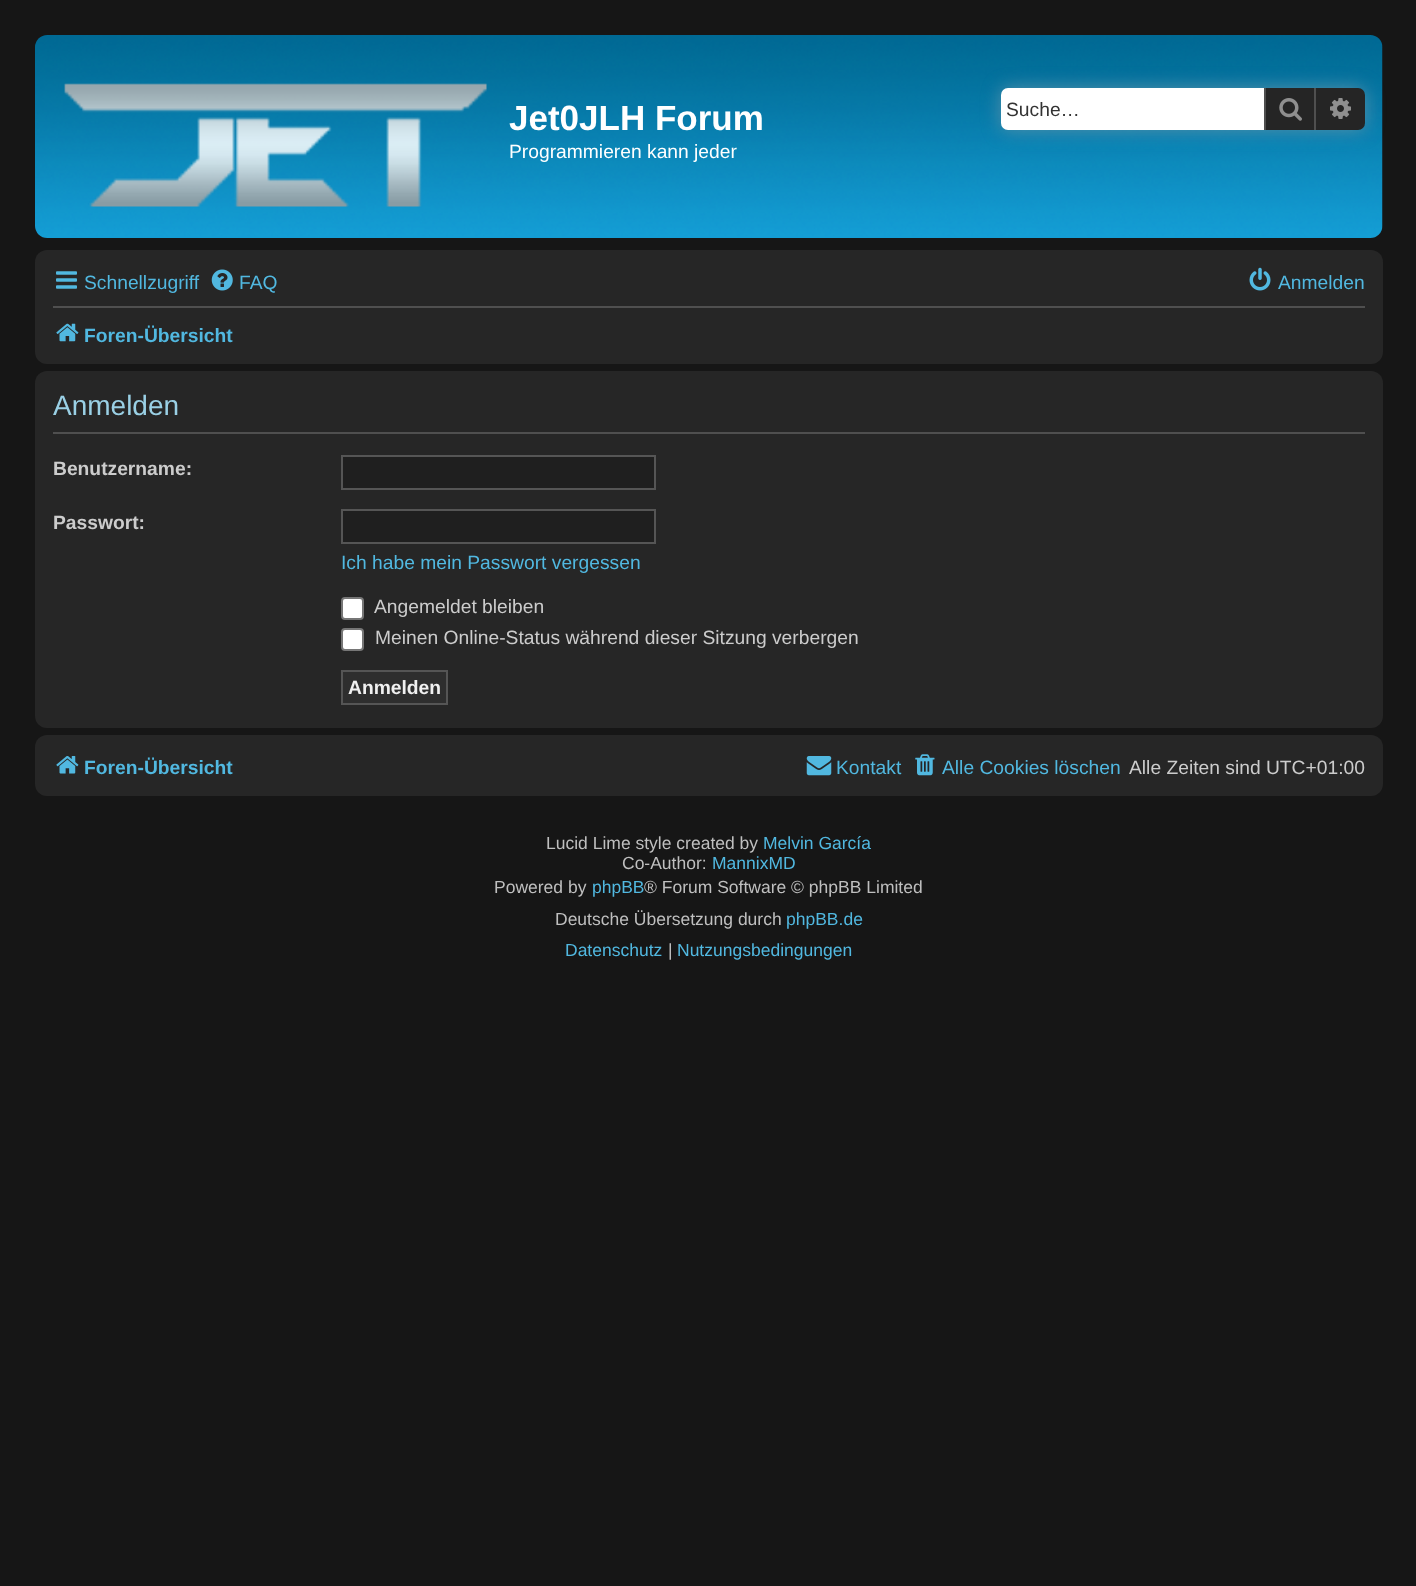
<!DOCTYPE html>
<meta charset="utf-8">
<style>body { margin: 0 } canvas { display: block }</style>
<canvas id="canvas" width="1416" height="1586"></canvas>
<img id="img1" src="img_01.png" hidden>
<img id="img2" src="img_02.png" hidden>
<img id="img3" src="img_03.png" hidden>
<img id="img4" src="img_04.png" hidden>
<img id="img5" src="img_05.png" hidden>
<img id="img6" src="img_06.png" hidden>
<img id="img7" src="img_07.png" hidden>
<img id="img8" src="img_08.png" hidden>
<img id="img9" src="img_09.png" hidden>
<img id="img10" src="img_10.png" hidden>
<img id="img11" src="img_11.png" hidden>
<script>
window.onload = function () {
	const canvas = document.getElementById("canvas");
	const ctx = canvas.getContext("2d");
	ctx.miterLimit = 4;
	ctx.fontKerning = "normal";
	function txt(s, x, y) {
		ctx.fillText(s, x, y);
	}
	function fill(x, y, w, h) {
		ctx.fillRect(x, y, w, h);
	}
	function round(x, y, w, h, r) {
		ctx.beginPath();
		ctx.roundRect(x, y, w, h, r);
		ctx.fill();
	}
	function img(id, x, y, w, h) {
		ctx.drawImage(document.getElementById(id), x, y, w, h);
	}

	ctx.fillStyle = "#161616";
	fill(0, 0, 1416, 1586);
	img("img1", 35, 35, 1348, 203);
	img("img2", 64, 83, 423, 124);
	ctx.fillStyle = "#5490AA";
	ctx.filter = "blur(9px)";
	ctx.beginPath();
	ctx.roundRect(1001, 88, 364, 42, 7);
	ctx.fill();
	ctx.filter = "none";
	ctx.fillStyle = "#FFFFFF";
	ctx.beginPath();
	ctx.roundRect(1001, 88, 263, 42, [7, 0, 0, 7]);
	ctx.fill();
	ctx.fillStyle = "#252525";
	fill(1266, 88, 48, 42);
	ctx.fillStyle = "#4F4F4F";
	fill(1314, 88, 2, 42);
	fill(1264, 88, 2, 42);
	img("img3", 1279, 98, 23, 23);
	ctx.fillStyle = "#252525";
	ctx.beginPath();
	ctx.roundRect(1316, 88, 49, 42, [0, 7, 7, 0]);
	ctx.fill();
	img("img4", 1330, 98, 21, 21);
	ctx.fillStyle = "#262626";
	round(35, 250, 1348, 114, 12);
	img("img5", 56, 271, 21, 18);
	img("img6", 211, 269, 22, 22);
	img("img7", 1249, 267, 22, 24);
	ctx.fillStyle = "#4F4F4F";
	fill(53, 306, 1312, 2);
	img("img8", 56, 323, 23, 19);
	ctx.fillStyle = "#262626";
	round(35, 371, 1348, 357, 12);
	ctx.fillStyle = "#4F4F4F";
	fill(53, 432, 1312, 2);
	ctx.fillStyle = "#1F1F1F";
	ctx.beginPath();
	ctx.rect(342, 456, 313, 33);
	ctx.fill();
	ctx.strokeStyle = "#555555";
	ctx.lineWidth = 2;
	ctx.stroke();
	ctx.beginPath();
	ctx.rect(342, 510, 313, 33);
	ctx.fill();
	ctx.stroke();
	ctx.fillStyle = "#FFFFFF";
	ctx.beginPath();
	ctx.roundRect(342, 598, 21, 21, 3);
	ctx.fill();
	ctx.strokeStyle = "#767676";
	ctx.stroke();
	ctx.beginPath();
	ctx.roundRect(342, 629, 21, 21, 3);
	ctx.fill();
	ctx.stroke();
	ctx.fillStyle = "#2E2E2E";
	ctx.beginPath();
	ctx.rect(342, 671, 105, 33);
	ctx.fill();
	ctx.strokeStyle = "#555555";
	ctx.stroke();
	ctx.fillStyle = "#262626";
	round(35, 735, 1348, 61, 12);
	img("img9", 56, 756, 23, 18);
	img("img10", 806, 756, 26, 20);
	img("img11", 915, 754, 20, 22);
	ctx.font = "bold 35px Liberation Sans";
	ctx.fillStyle = "#FFFFFF";
	txt("Jet0JLH Forum", 509, 130);
	ctx.font = "19.25px Liberation Sans";
	txt("Programmieren kann jeder", 509, 158);
	ctx.fillStyle = "#333333";
	txt("Suche…", 1006, 116);
	ctx.fillStyle = "#51B8E0";
	txt("Schnellzugriff", 84, 289);
	txt("FAQ", 239, 289);
	txt("Anmelden", 1278, 289);
	ctx.font = "bold 19.25px Liberation Sans";
	txt("Foren-Übersicht", 84, 342);
	ctx.font = "28px Liberation Sans";
	ctx.fillStyle = "#9AD0E5";
	txt("Anmelden", 53, 415);
	ctx.font = "bold 19.25px Liberation Sans";
	ctx.fillStyle = "#CCCCCC";
	txt("Benutzername:", 53, 475);
	txt("Passwort:", 53, 529);
	ctx.font = "19.25px Liberation Sans";
	ctx.fillStyle = "#51B8E0";
	txt("Ich habe mein Passwort vergessen", 341, 569);
	ctx.fillStyle = "#CCCCCC";
	txt("Angemeldet bleiben", 374, 613);
	txt("Meinen Online-Status während dieser Sitzung verbergen", 375, 644);
	ctx.font = "bold 19.25px Liberation Sans";
	ctx.fillStyle = "#F0F0F0";
	txt("Anmelden", 348, 694);
	ctx.fillStyle = "#51B8E0";
	txt("Foren-Übersicht", 84, 774);
	ctx.font = "19.25px Liberation Sans";
	txt("Kontakt", 836, 774);
	txt("Alle Cookies löschen", 942, 774);
	ctx.fillStyle = "#CCCCCC";
	txt("Alle Zeiten sind UTC+01:00", 1129, 774);
	ctx.font = "17.5px Liberation Sans";
	ctx.fillStyle = "#BFBFBF";
	txt("Lucid Lime style created by", 546, 849);
	ctx.fillStyle = "#51B8E0";
	txt("Melvin García", 763, 849);
	ctx.fillStyle = "#BFBFBF";
	txt("Co-Author:", 622, 869);
	ctx.fillStyle = "#51B8E0";
	txt("MannixMD", 712, 869);
	ctx.fillStyle = "#BFBFBF";
	txt("Powered by", 494, 893);
	ctx.fillStyle = "#51B8E0";
	txt("phpBB", 592, 893);
	ctx.fillStyle = "#BFBFBF";
	txt("® Forum Software © phpBB Limited", 644, 893);
	txt("Deutsche Übersetzung durch", 555, 925);
	ctx.fillStyle = "#51B8E0";
	txt("phpBB.de", 786, 925);
	txt("Datenschutz", 565, 956);
	ctx.fillStyle = "#BFBFBF";
	txt("|", 668, 956);
	ctx.fillStyle = "#51B8E0";
	txt("Nutzungsbedingungen", 677, 956);
};
</script>
